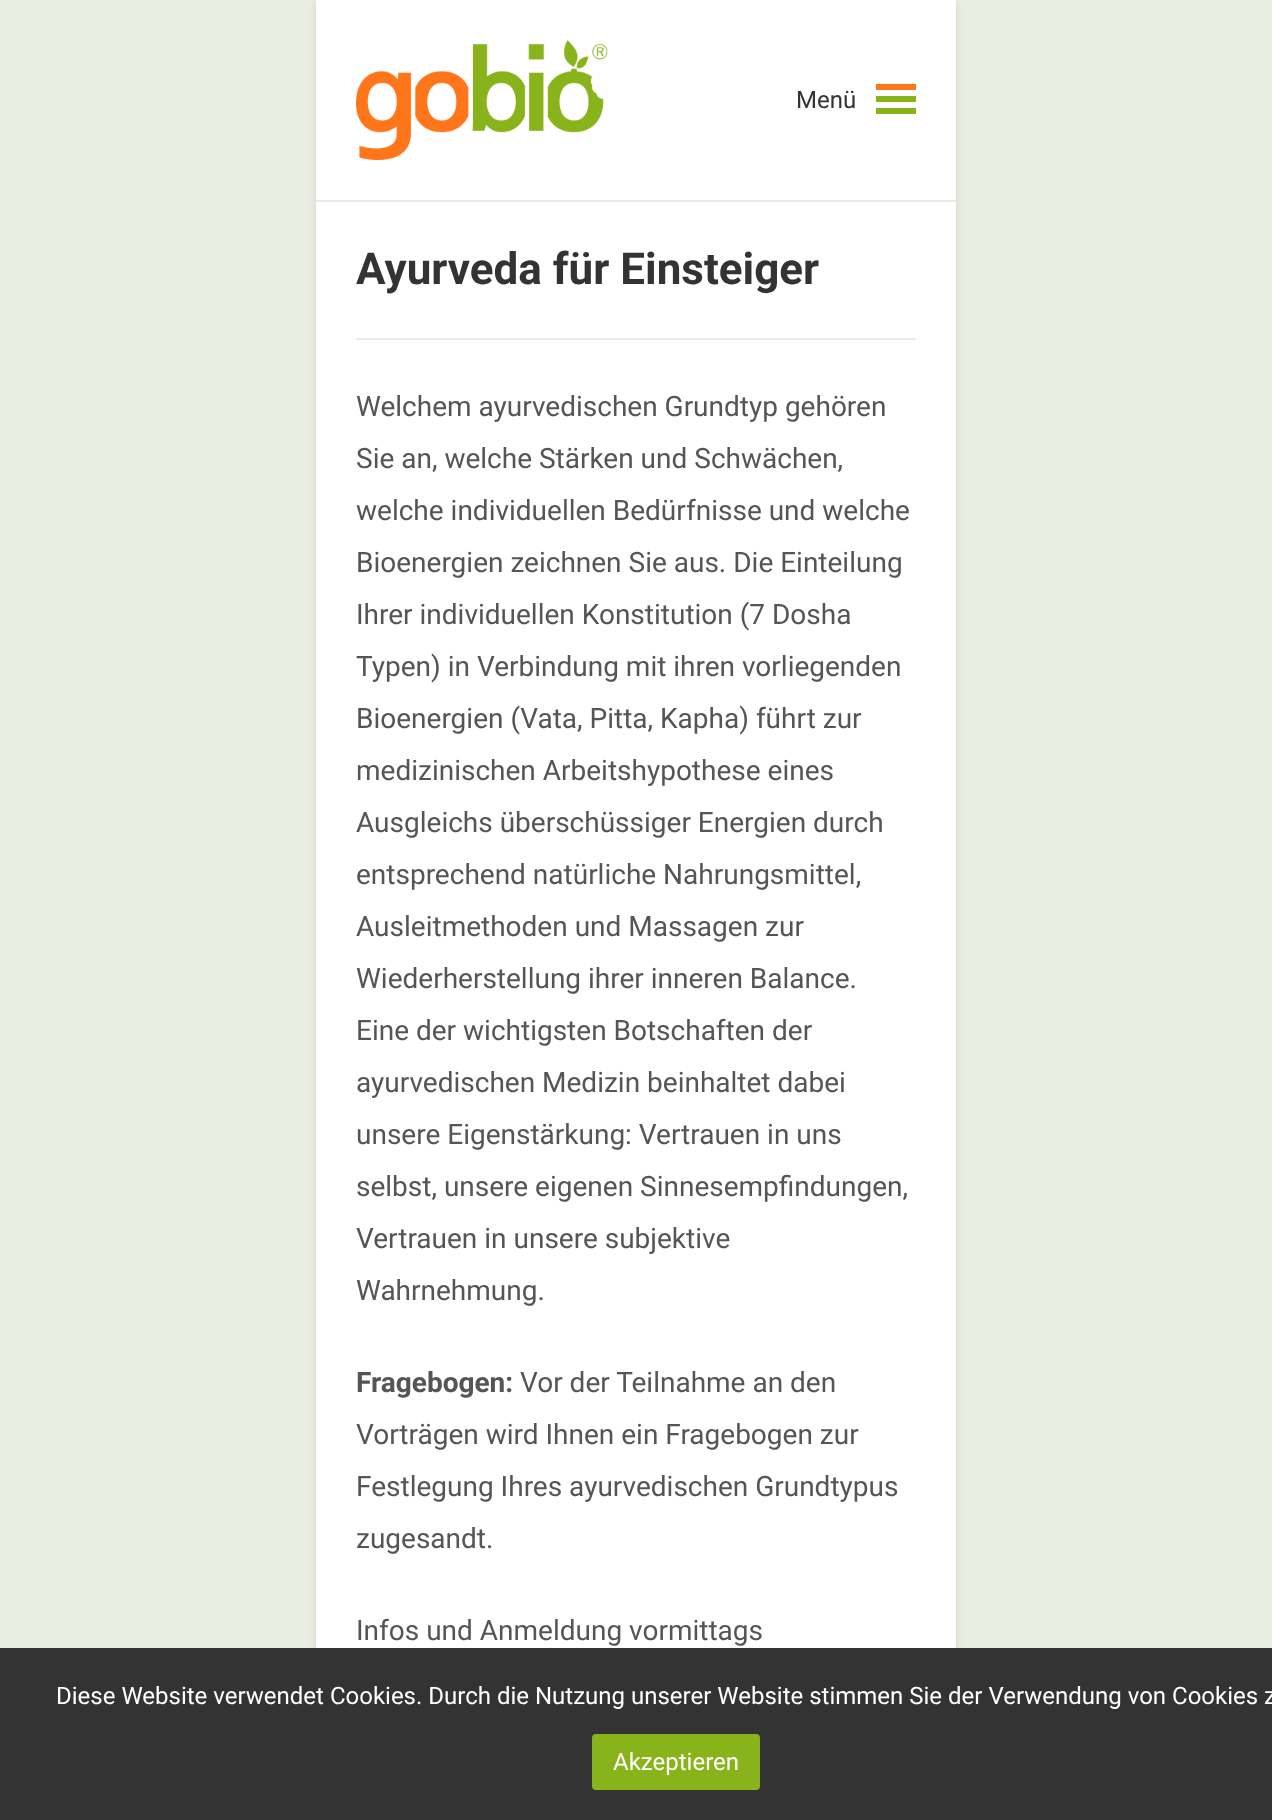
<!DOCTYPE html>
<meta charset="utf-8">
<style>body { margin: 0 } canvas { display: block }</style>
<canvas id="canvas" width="1272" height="1820"></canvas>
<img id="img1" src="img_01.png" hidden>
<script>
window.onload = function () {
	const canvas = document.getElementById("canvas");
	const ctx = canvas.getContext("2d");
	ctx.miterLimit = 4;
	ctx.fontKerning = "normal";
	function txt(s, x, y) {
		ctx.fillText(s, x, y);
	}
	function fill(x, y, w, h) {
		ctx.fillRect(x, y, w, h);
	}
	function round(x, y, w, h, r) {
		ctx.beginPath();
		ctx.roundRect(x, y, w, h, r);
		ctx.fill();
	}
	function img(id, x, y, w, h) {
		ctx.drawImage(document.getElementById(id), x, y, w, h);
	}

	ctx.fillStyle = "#EAEDE1";
	fill(0, 0, 1272, 1820);
	ctx.fillStyle = "rgba(0, 0, 0, 0.1)";
	ctx.filter = "blur(3px)";
	ctx.beginPath();
	ctx.rect(316, 0, 640, 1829);
	ctx.fill();
	ctx.filter = "none";
	ctx.fillStyle = "#FFFFFF";
	fill(316, 0, 640, 1648);
	ctx.fillStyle = "#EAEDE1";
	fill(316, 200, 640, 2);
	img("img1", 356, 40, 252, 120);
	ctx.fillStyle = "#FF751A";
	fill(876, 84, 40, 6);
	ctx.fillStyle = "#88B31B";
	fill(876, 96, 40, 6);
	fill(876, 108, 40, 6);
	ctx.fillStyle = "#EAEDE1";
	fill(356, 338, 560, 2);
	ctx.fillStyle = "#333333";
	fill(0, 1648, 1272, 172);
	ctx.fillStyle = "#88B31B";
	round(592, 1734, 168, 56, 4);
	ctx.font = "24px Roboto";
	ctx.fillStyle = "#333333";
	txt("Menü", 796, 108);
	ctx.font = "bold 44px Roboto";
	txt("Ayurveda für Einsteiger", 356, 284);
	ctx.font = "28px Roboto";
	ctx.fillStyle = "#555555";
	txt("Welchem ayurvedischen Grundtyp gehören", 356, 416);
	txt("Sie an, welche Stärken und Schwächen,", 356, 468);
	txt("welche individuellen Bedürfnisse und welche", 356, 520);
	txt("Bioenergien zeichnen Sie aus. Die Einteilung", 356, 572);
	txt("Ihrer individuellen Konstitution (7 Dosha", 356, 624);
	txt("Typen) in Verbindung mit ihren vorliegenden", 356, 676);
	txt("Bioenergien (Vata, Pitta, Kapha) führt zur", 356, 728);
	txt("medizinischen Arbeitshypothese eines", 356, 780);
	txt("Ausgleichs überschüssiger Energien durch", 356, 832);
	txt("entsprechend natürliche Nahrungsmittel,", 356, 884);
	txt("Ausleitmethoden und Massagen zur", 356, 936);
	txt("Wiederherstellung ihrer inneren Balance.", 356, 988);
	txt("Eine der wichtigsten Botschaften der", 356, 1040);
	txt("ayurvedischen Medizin beinhaltet dabei", 356, 1092);
	txt("unsere Eigenstärkung: Vertrauen in uns", 356, 1144);
	txt("selbst, unsere eigenen Sinnesempfindungen,", 356, 1196);
	txt("Vertrauen in unsere subjektive", 356, 1248);
	txt("Wahrnehmung.", 356, 1300);
	ctx.font = "bold 28px Roboto";
	txt("Fragebogen:", 356, 1392);
	ctx.font = "28px Roboto";
	txt("Vor der Teilnahme an den", 520, 1392);
	txt("Vorträgen wird Ihnen ein Fragebogen zur", 356, 1444);
	txt("Festlegung Ihres ayurvedischen Grundtypus", 356, 1496);
	txt("zugesandt.", 356, 1548);
	txt("Infos und Anmeldung vormittags", 356, 1640);
	ctx.font = "24px Roboto";
	ctx.fillStyle = "#FFFFFF";
	txt("Diese Website verwendet Cookies. Durch die Nutzung unserer Website stimmen Sie der Verwendung von Cookies z", 56, 1704);
	txt("Akzeptieren", 613, 1770);
};
</script>
